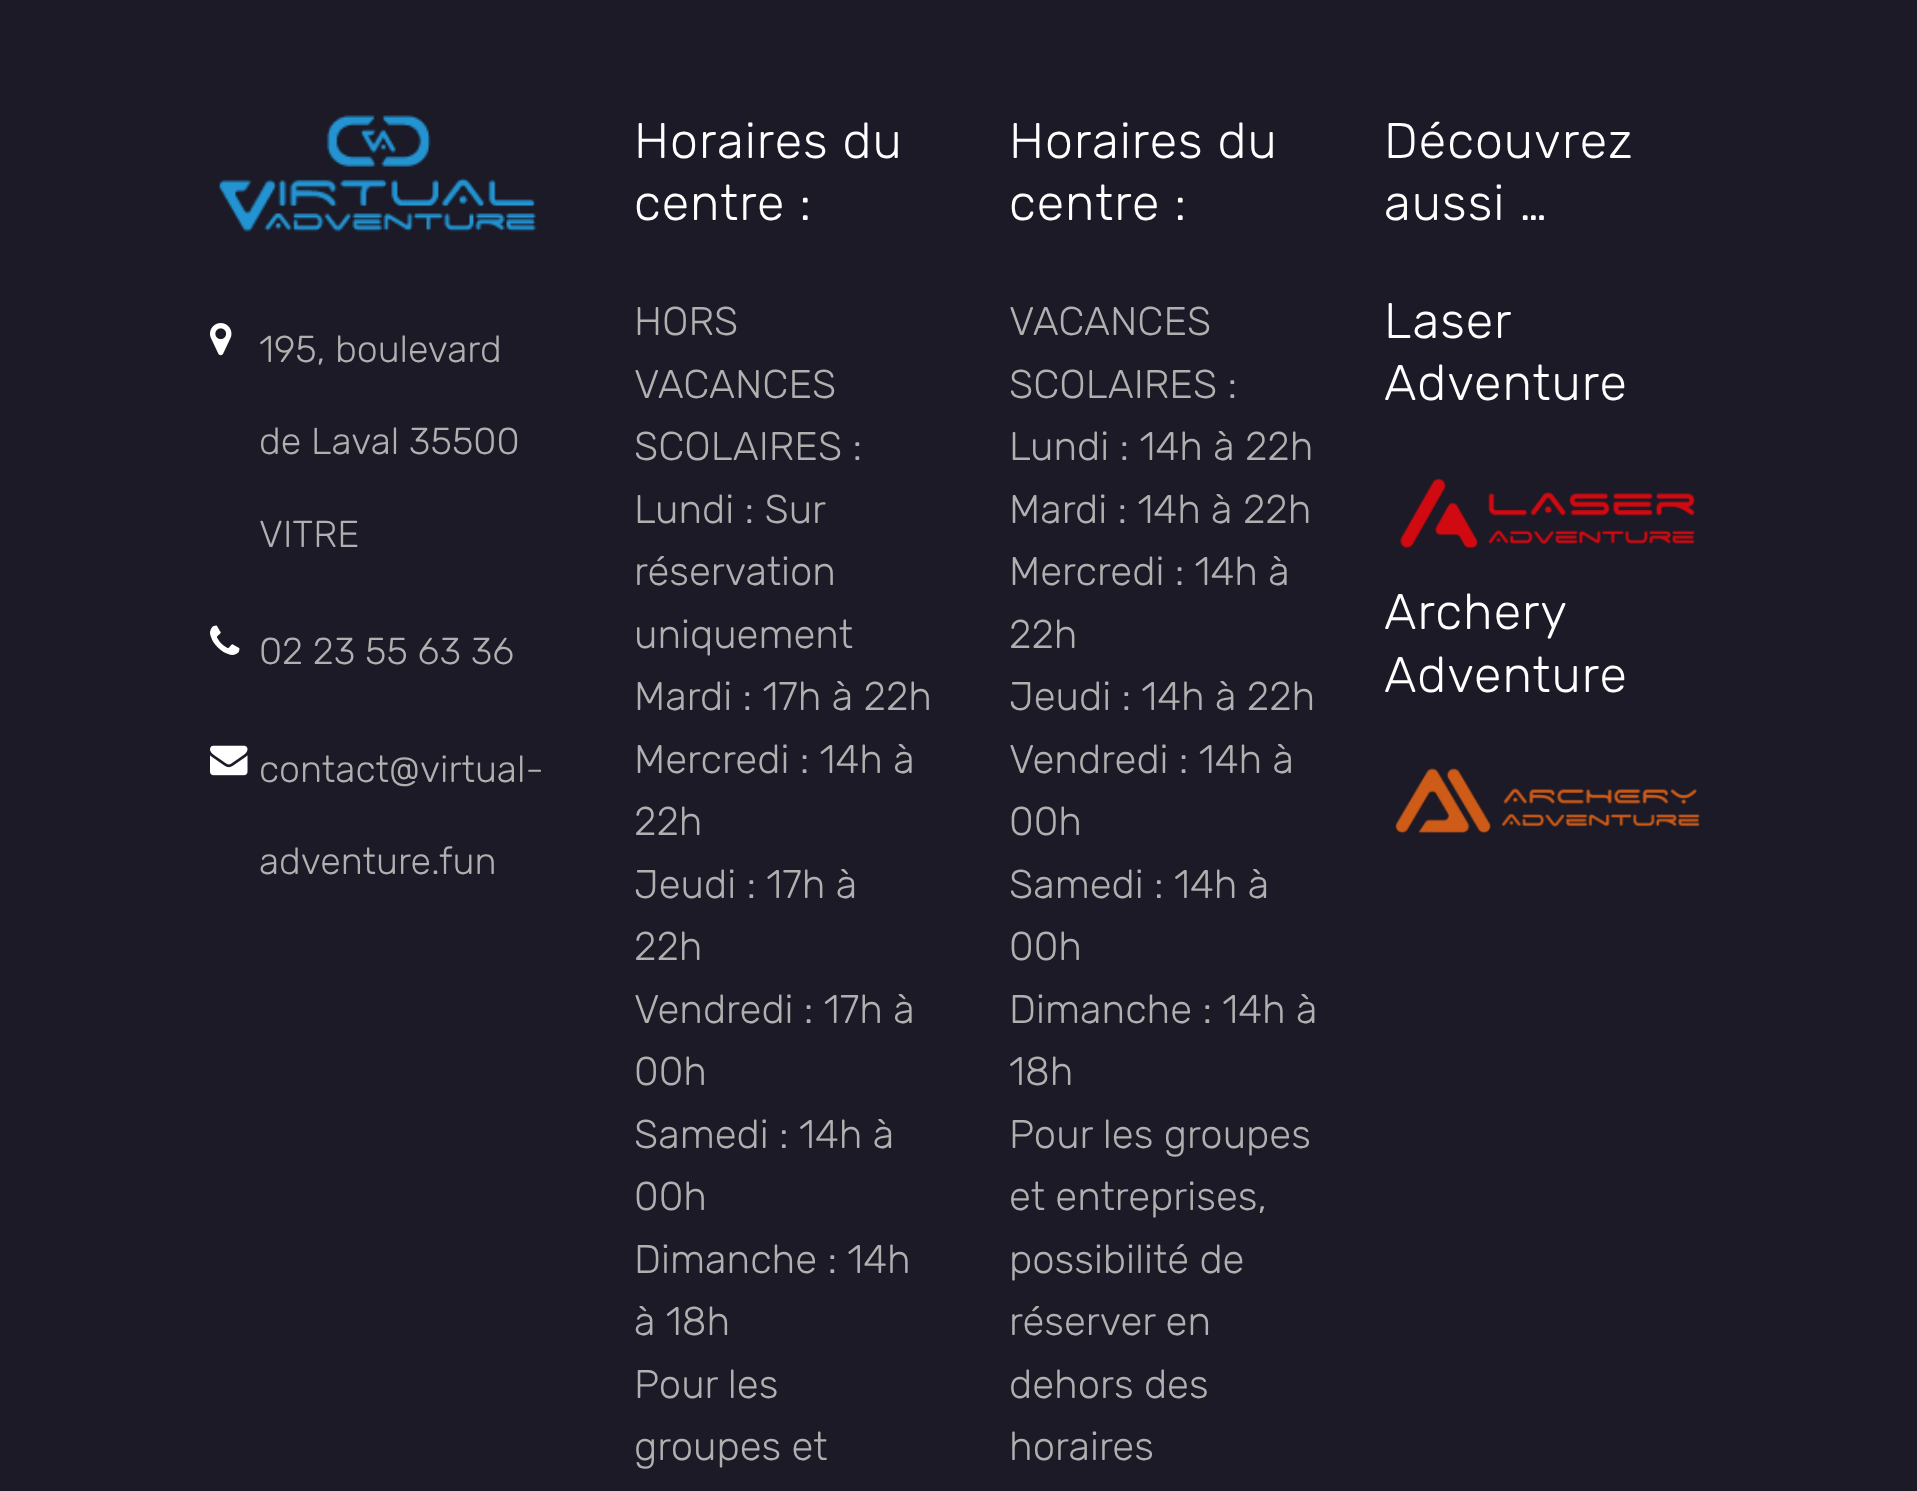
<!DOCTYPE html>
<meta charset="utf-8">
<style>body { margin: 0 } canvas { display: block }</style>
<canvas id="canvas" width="1917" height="1491"></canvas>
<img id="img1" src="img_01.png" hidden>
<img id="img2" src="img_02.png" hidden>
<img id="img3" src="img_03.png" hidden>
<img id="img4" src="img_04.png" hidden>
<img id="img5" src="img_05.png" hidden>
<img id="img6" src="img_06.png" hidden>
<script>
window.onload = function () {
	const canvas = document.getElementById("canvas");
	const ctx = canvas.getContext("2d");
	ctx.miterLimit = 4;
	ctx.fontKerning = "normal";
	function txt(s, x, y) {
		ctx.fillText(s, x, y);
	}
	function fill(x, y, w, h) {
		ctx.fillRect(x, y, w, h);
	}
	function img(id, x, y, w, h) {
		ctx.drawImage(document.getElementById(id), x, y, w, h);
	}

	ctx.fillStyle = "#1B1A26";
	fill(0, 0, 1917, 1491);
	img("img1", 219, 115, 318, 117);
	img("img2", 210, 323, 22, 33);
	img("img3", 210, 625, 30, 30);
	img("img4", 210, 745, 38, 31);
	img("img5", 1400, 478, 295, 71);
	img("img6", 1395, 768, 305, 66);
	ctx.font = "300 37.5px Rubik";
	ctx.fillStyle = "#B0B0B0";
	txt("195, boulevard", 259, 362);
	txt("de Laval 35500", 259, 454);
	txt("VITRE", 259, 547);
	txt("02 23 55 63 36", 259, 664);
	txt("contact@virtual-", 259, 782);
	txt("adventure.fun", 259, 874);
	ctx.letterSpacing = "1px";
	ctx.font = "300 50px Rubik";
	ctx.fillStyle = "#FFFFFF";
	txt("Horaires du", 634, 158);
	txt("centre :", 634, 220);
	ctx.letterSpacing = "0px";
	ctx.font = "300 40px Rubik";
	ctx.fillStyle = "#B0B0B0";
	txt("HORS", 634, 335);
	txt("VACANCES", 634, 398);
	txt("SCOLAIRES :", 634, 460);
	txt("Lundi : Sur", 634, 523);
	txt("réservation", 634, 585);
	txt("uniquement", 634, 648);
	txt("Mardi : 17h à 22h", 634, 710);
	txt("Mercredi : 14h à", 634, 773);
	txt("22h", 634, 835);
	txt("Jeudi : 17h à", 634, 898);
	txt("22h", 634, 960);
	txt("Vendredi : 17h à", 634, 1023);
	txt("00h", 634, 1085);
	txt("Samedi : 14h à", 634, 1148);
	txt("00h", 634, 1210);
	txt("Dimanche : 14h", 634, 1273);
	txt("à 18h", 634, 1335);
	txt("Pour les", 634, 1398);
	txt("groupes et", 634, 1460);
	ctx.letterSpacing = "1px";
	ctx.font = "300 50px Rubik";
	ctx.fillStyle = "#FFFFFF";
	txt("Horaires du", 1009, 158);
	txt("centre :", 1009, 220);
	ctx.letterSpacing = "0px";
	ctx.font = "300 40px Rubik";
	ctx.fillStyle = "#B0B0B0";
	txt("VACANCES", 1009, 335);
	txt("SCOLAIRES :", 1009, 398);
	txt("Lundi : 14h à 22h", 1009, 460);
	txt("Mardi : 14h à 22h", 1009, 523);
	txt("Mercredi : 14h à", 1009, 585);
	txt("22h", 1009, 648);
	txt("Jeudi : 14h à 22h", 1009, 710);
	txt("Vendredi : 14h à", 1009, 773);
	txt("00h", 1009, 835);
	txt("Samedi : 14h à", 1009, 898);
	txt("00h", 1009, 960);
	txt("Dimanche : 14h à", 1009, 1023);
	txt("18h", 1009, 1085);
	txt("Pour les groupes", 1009, 1148);
	txt("et entreprises,", 1009, 1210);
	txt("possibilité de", 1009, 1273);
	txt("réserver en", 1009, 1335);
	txt("dehors des", 1009, 1398);
	txt("horaires", 1009, 1460);
	ctx.letterSpacing = "1px";
	ctx.font = "300 50px Rubik";
	ctx.fillStyle = "#FFFFFF";
	txt("Découvrez", 1384, 158);
	txt("aussi …", 1384, 220);
	txt("Laser", 1384, 338);
	txt("Adventure", 1384, 400);
	txt("Archery", 1384, 629);
	txt("Adventure", 1384, 692);
};
</script>
